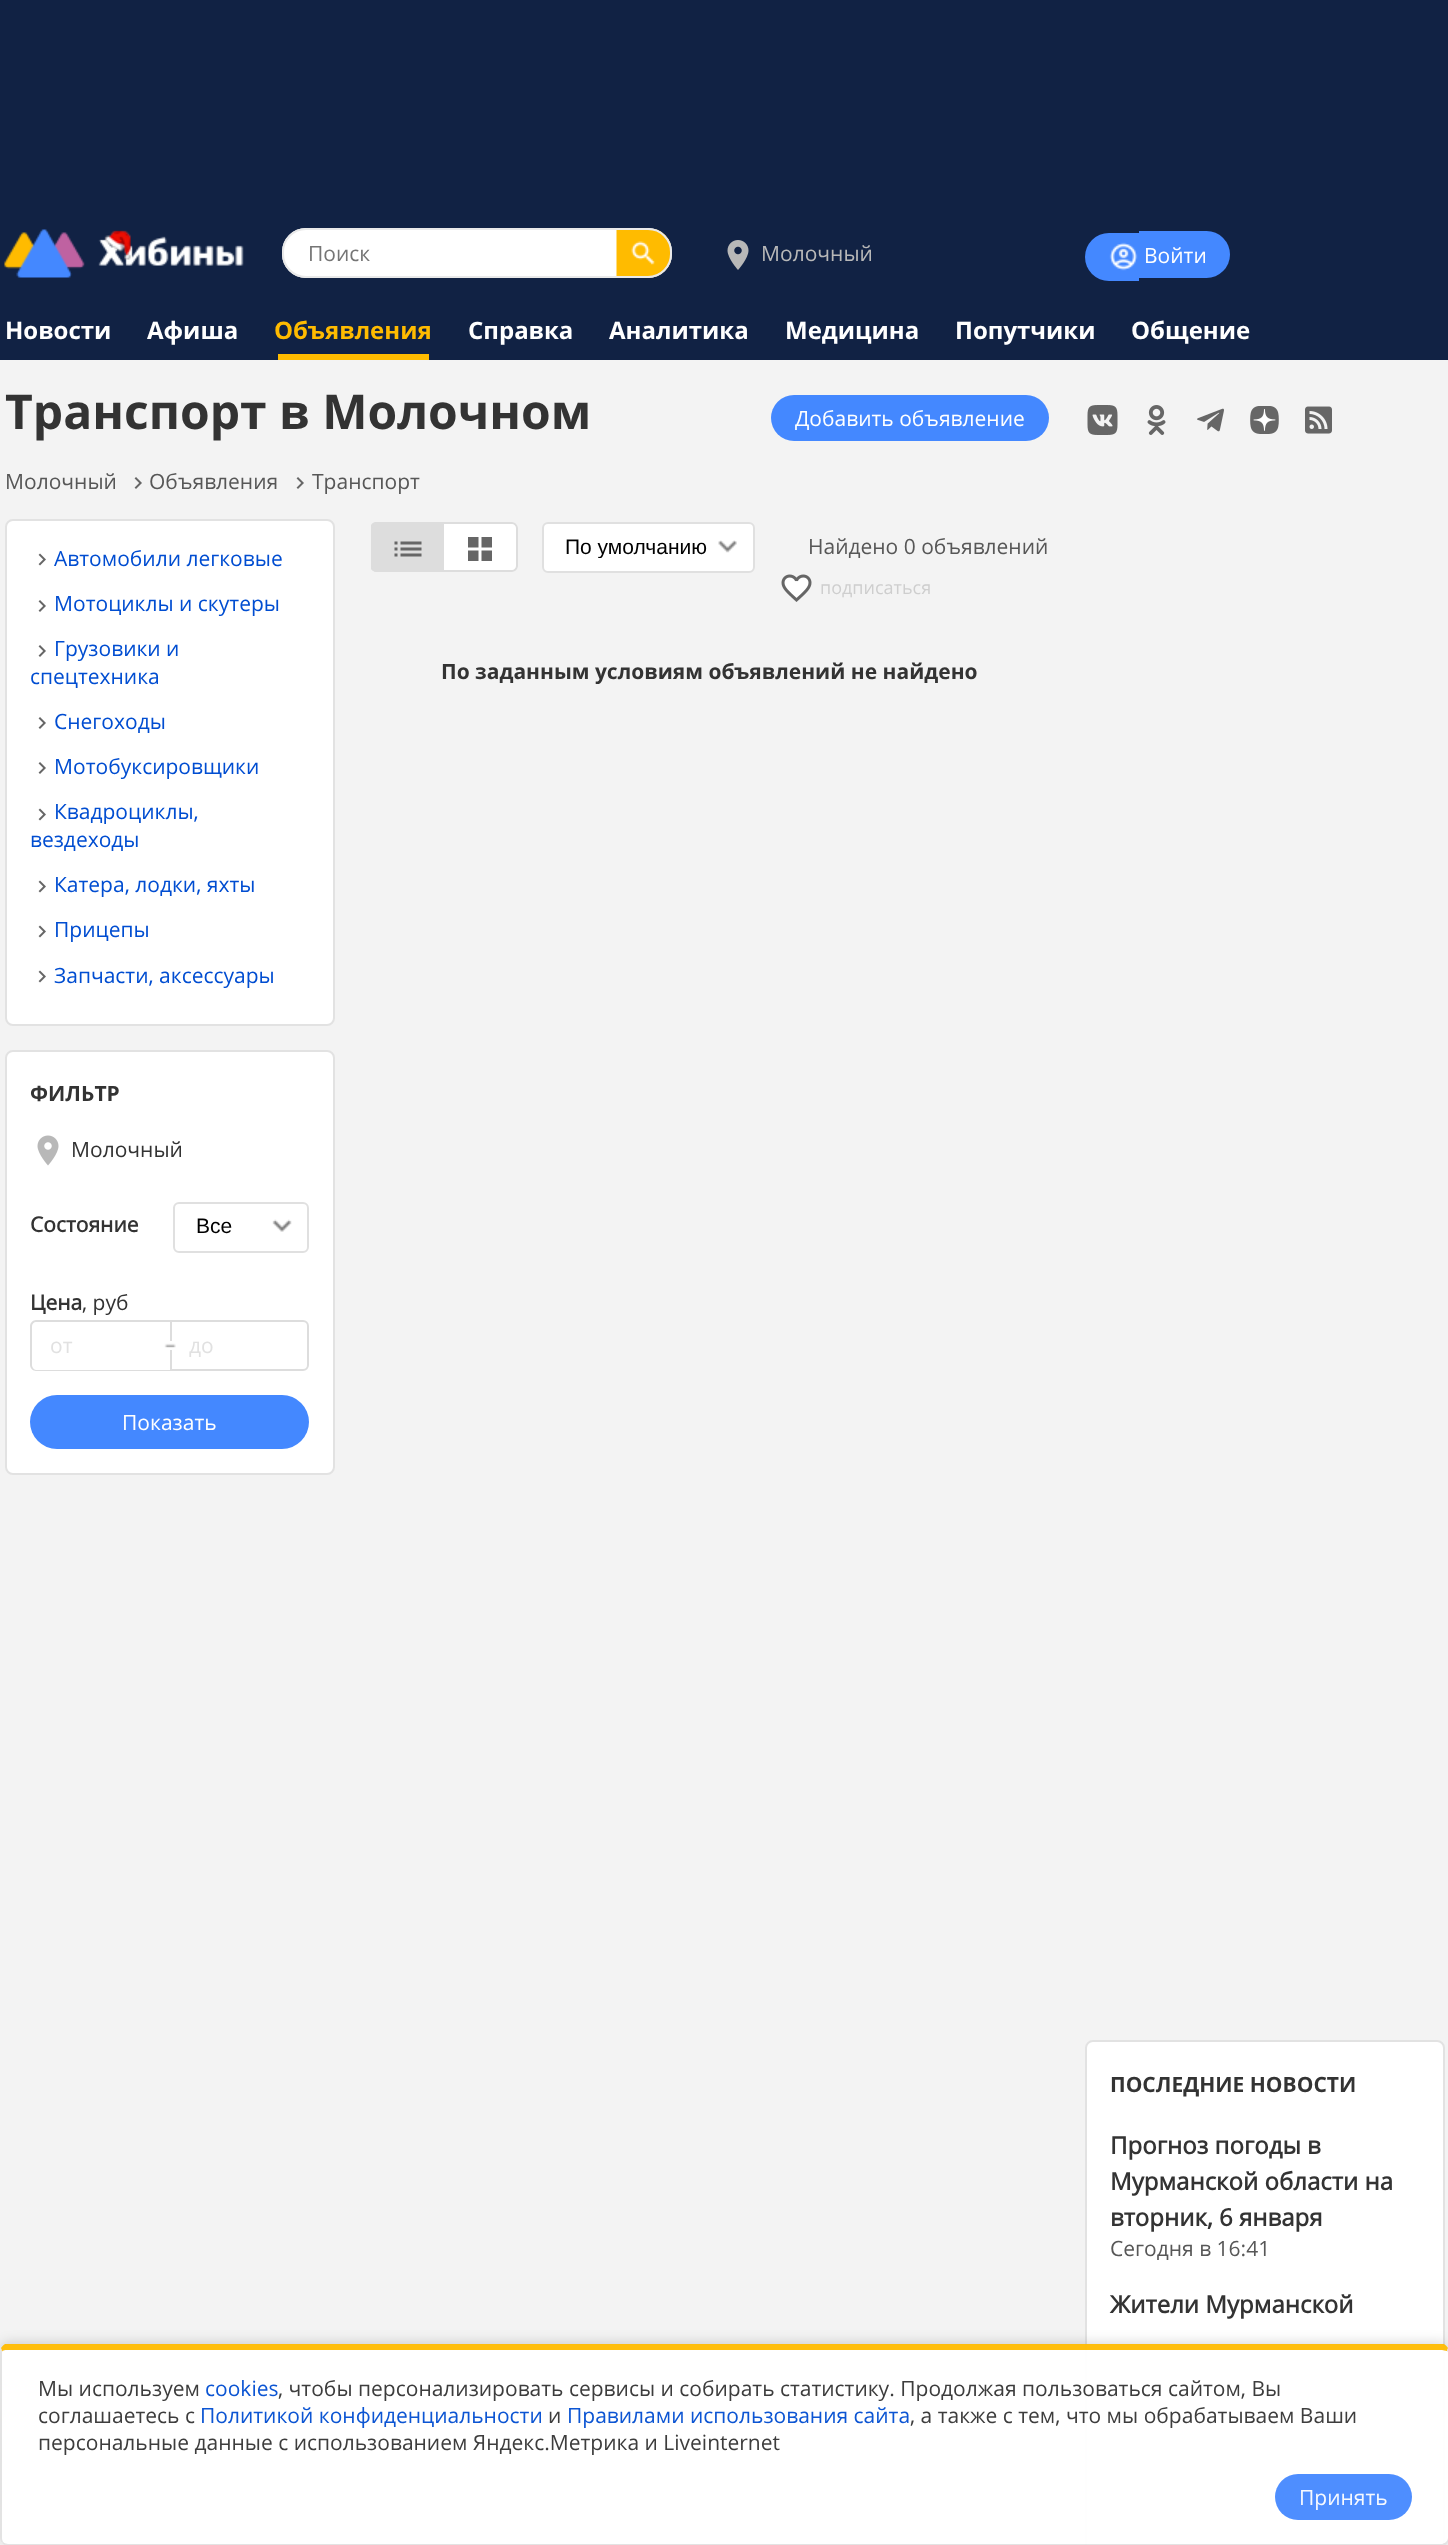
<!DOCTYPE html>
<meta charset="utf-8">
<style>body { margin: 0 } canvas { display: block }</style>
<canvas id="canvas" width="1448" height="2545"></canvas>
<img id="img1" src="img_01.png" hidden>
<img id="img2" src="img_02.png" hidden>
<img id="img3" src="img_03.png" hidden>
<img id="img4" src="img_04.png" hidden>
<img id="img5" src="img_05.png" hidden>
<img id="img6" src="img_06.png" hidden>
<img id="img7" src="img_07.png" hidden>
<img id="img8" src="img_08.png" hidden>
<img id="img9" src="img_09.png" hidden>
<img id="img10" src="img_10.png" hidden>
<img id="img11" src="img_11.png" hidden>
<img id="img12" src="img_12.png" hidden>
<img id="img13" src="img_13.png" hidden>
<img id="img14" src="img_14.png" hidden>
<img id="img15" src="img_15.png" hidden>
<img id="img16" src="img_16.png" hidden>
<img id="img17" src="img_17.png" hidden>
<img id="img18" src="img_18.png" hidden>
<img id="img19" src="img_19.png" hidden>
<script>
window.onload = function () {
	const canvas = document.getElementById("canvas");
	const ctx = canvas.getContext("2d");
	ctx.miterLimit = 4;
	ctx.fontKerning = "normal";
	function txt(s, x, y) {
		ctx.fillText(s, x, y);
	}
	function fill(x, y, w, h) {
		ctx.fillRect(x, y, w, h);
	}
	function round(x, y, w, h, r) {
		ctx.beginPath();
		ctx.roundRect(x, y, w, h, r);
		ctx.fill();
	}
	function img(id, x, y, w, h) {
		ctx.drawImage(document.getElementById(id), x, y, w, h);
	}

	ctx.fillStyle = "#F3F3F3";
	fill(0, 0, 1448, 2545);
	ctx.fillStyle = "#112244";
	fill(0, 0, 1448, 360);
	img("img1", 4, 229, 240, 49);
	ctx.fillStyle = "#FFFFFF";
	round(282, 228, 390, 50, 24);
	img("img2", 616, 229, 55, 49);
	ctx.beginPath();
	ctx.roundRect(283, 229, 388, 48, 23);
	ctx.strokeStyle = "#E9E9E9";
	ctx.lineWidth = 2;
	ctx.stroke();
	img("img3", 727, 240, 22, 30);
	ctx.fillStyle = "#4488FF";
	ctx.beginPath();
	ctx.roundRect(1085, 233, 54, 48, [24, 0, 0, 24]);
	ctx.fill();
	img("img4", 1109, 242, 29, 29);
	ctx.beginPath();
	ctx.roundRect(1139, 231, 91, 47, [0, 23.5, 23.5, 0]);
	ctx.fill();
	ctx.fillStyle = "#FFBB00";
	fill(278, 354, 151, 6);
	ctx.fillStyle = "#4488FF";
	round(771, 395, 278, 46, 23);
	img("img5", 134, 477, 8, 12);
	img("img5", 296, 477, 8, 12);
	ctx.fillStyle = "#FFFFFF";
	ctx.beginPath();
	ctx.roundRect(6, 520, 328, 505, 7);
	ctx.fill();
	ctx.strokeStyle = "#E2E2E2";
	ctx.stroke();
	img("img6", 38, 553, 8, 13);
	img("img7", 38, 600, 8, 12);
	img("img7", 38, 645, 8, 12);
	img("img7", 38, 717, 8, 12);
	img("img7", 38, 762, 8, 12);
	img("img6", 38, 808, 8, 13);
	img("img6", 38, 880, 8, 13);
	img("img6", 38, 925, 8, 13);
	img("img6", 38, 970, 8, 13);
	ctx.beginPath();
	ctx.roundRect(6, 1051, 328, 423, 7);
	ctx.fill();
	ctx.stroke();
	img("img8", 37, 1135, 22, 31);
	ctx.beginPath();
	ctx.roundRect(174, 1203, 134, 49, 5);
	ctx.strokeStyle = "#E0E0E0";
	ctx.stroke();
	img("img9", 272, 1219, 20, 13);
	ctx.fillStyle = "#DDDDDD";
	ctx.beginPath();
	ctx.moveTo(36, 1320);
	ctx.lineTo(170, 1320);
	ctx.lineTo(170, 1371);
	ctx.lineTo(36, 1371);
	ctx.bezierCurveTo(33, 1371, 30, 1368, 30, 1365);
	ctx.lineTo(30, 1326);
	ctx.bezierCurveTo(30, 1323, 33, 1320, 36, 1320);
	ctx.closePath();
	ctx.moveTo(36, 1322);
	ctx.lineTo(170, 1322);
	ctx.lineTo(170, 1370);
	ctx.lineTo(36, 1370);
	ctx.bezierCurveTo(34, 1370, 32, 1367, 32, 1365);
	ctx.lineTo(32, 1326);
	ctx.bezierCurveTo(32, 1324, 34, 1322, 36, 1322);
	ctx.closePath();
	ctx.fill("evenodd");
	ctx.beginPath();
	ctx.roundRect(171, 1321, 137, 49, [0, 5, 5, 0]);
	ctx.strokeStyle = "#DDDDDD";
	ctx.stroke();
	img("img10", 164, 1341, 12, 9);
	ctx.fillStyle = "#4488FF";
	round(30, 1395, 279, 54, 27);
	ctx.fillStyle = "#DDDDDD";
	ctx.beginPath();
	ctx.roundRect(371, 522, 73, 50, [6, 0, 0, 6]);
	ctx.fill();
	ctx.save();
	ctx.beginPath();
	ctx.rect(371, 519, 678, 171);
	ctx.clip();
	ctx.beginPath();
	ctx.moveTo(376, 522);
	ctx.lineTo(444, 522);
	ctx.lineTo(444, 572);
	ctx.lineTo(376, 572);
	ctx.bezierCurveTo(373, 572, 370, 569, 370, 566);
	ctx.lineTo(370, 528);
	ctx.bezierCurveTo(370, 525, 373, 522, 376, 522);
	ctx.closePath();
	ctx.moveTo(376, 524);
	ctx.lineTo(444, 524);
	ctx.lineTo(444, 570);
	ctx.lineTo(376, 570);
	ctx.bezierCurveTo(374, 570, 372, 568, 372, 566);
	ctx.lineTo(372, 528);
	ctx.bezierCurveTo(372, 526, 374, 524, 376, 524);
	ctx.closePath();
	ctx.fill("evenodd");
	ctx.restore();
	ctx.fillStyle = "#FFFFFF";
	ctx.beginPath();
	ctx.roundRect(444, 522, 74, 50, [0, 6, 6, 0]);
	ctx.fill();
	ctx.fillStyle = "#DDDDDD";
	ctx.beginPath();
	ctx.moveTo(444, 522);
	ctx.lineTo(512, 522);
	ctx.bezierCurveTo(515, 522, 518, 525, 518, 528);
	ctx.lineTo(518, 566);
	ctx.bezierCurveTo(518, 569, 515, 572, 512, 572);
	ctx.lineTo(444, 572);
	ctx.closePath();
	ctx.moveTo(444, 524);
	ctx.lineTo(512, 524);
	ctx.bezierCurveTo(514, 524, 516, 526, 516, 528);
	ctx.lineTo(516, 566);
	ctx.bezierCurveTo(516, 568, 514, 570, 512, 570);
	ctx.lineTo(444, 570);
	ctx.closePath();
	ctx.fill("evenodd");
	img("img11", 394, 541, 28, 16);
	img("img12", 468, 537, 24, 24);
	ctx.fillStyle = "#FFFFFF";
	ctx.beginPath();
	ctx.roundRect(543, 523, 211, 49, 5);
	ctx.fill();
	ctx.strokeStyle = "#E0E0E0";
	ctx.stroke();
	img("img13", 718, 540, 19, 13);
	img("img14", 781, 574, 31, 28);
	img("img15", 1087, 405, 31, 30);
	img("img16", 1147, 405, 19, 30);
	img("img17", 1197, 408, 27, 24);
	img("img18", 1250, 406, 29, 28);
	img("img19", 1305, 406, 27, 28);
	ctx.beginPath();
	ctx.roundRect(1086, 2041, 358, 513, 7);
	ctx.fill();
	ctx.strokeStyle = "#E2E2E2";
	ctx.stroke();
	ctx.save();
	ctx.beginPath();
	ctx.moveTo(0, 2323);
	ctx.lineTo(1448, 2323);
	ctx.lineTo(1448, 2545);
	ctx.lineTo(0, 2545);
	ctx.closePath();
	ctx.moveTo(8, 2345);
	ctx.lineTo(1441, 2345);
	ctx.bezierCurveTo(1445.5, 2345, 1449, 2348.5, 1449, 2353);
	ctx.lineTo(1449, 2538);
	ctx.bezierCurveTo(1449, 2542.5, 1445.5, 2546, 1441, 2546);
	ctx.lineTo(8, 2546);
	ctx.bezierCurveTo(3.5, 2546, 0, 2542.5, 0, 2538);
	ctx.lineTo(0, 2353);
	ctx.bezierCurveTo(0, 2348.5, 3.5, 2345, 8, 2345);
	ctx.closePath();
	ctx.clip("evenodd");
	ctx.fillStyle = "rgba(0, 0, 0, 0.14)";
	ctx.filter = "blur(6px)";
	ctx.beginPath();
	ctx.roundRect(0, 2342, 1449, 201, 8);
	ctx.fill();
	ctx.filter = "none";
	ctx.restore();
	ctx.fillStyle = "rgba(255, 255, 255, 0.95)";
	ctx.beginPath();
	ctx.moveTo(8, 2350);
	ctx.lineTo(1442, 2350);
	ctx.bezierCurveTo(1445, 2350, 1448, 2351, 1448, 2352);
	ctx.lineTo(1448, 2538);
	ctx.bezierCurveTo(1448, 2541, 1445, 2544, 1442, 2544);
	ctx.lineTo(8, 2544);
	ctx.bezierCurveTo(4, 2544, 2, 2541, 2, 2538);
	ctx.lineTo(2, 2352);
	ctx.bezierCurveTo(2, 2351, 4, 2350, 8, 2350);
	ctx.closePath();
	ctx.fill();
	ctx.fillStyle = "rgba(255, 187, 0, 0.95)";
	ctx.beginPath();
	ctx.moveTo(8, 2350);
	ctx.bezierCurveTo(6, 2350, 2, 2350, 2, 2352);
	ctx.lineTo(1, 2348);
	ctx.bezierCurveTo(2, 2347, 3, 2345, 5, 2344);
	ctx.lineTo(1444, 2344);
	ctx.bezierCurveTo(1446, 2345, 1447, 2347, 1448, 2348);
	ctx.lineTo(1447, 2351);
	ctx.lineTo(1442, 2350);
	ctx.closePath();
	ctx.fill();
	ctx.fillStyle = "#E3E3E3";
	ctx.beginPath();
	ctx.moveTo(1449, 2538);
	ctx.lineTo(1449, 2352);
	ctx.lineTo(1448, 2348);
	ctx.lineTo(1447, 2351);
	ctx.lineTo(1448, 2352);
	ctx.lineTo(1448, 2538);
	ctx.bezierCurveTo(1448, 2540, 1447, 2541, 1446, 2542);
	ctx.lineTo(1447, 2544);
	ctx.bezierCurveTo(1448, 2542, 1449, 2540, 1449, 2538);
	ctx.closePath();
	ctx.fill();
	ctx.fillStyle = "rgba(226, 226, 226, 0.95)";
	ctx.beginPath();
	ctx.moveTo(5, 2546);
	ctx.lineTo(2, 2543);
	ctx.lineTo(3, 2542);
	ctx.bezierCurveTo(4, 2543, 6, 2544, 8, 2544);
	ctx.lineTo(1442, 2544);
	ctx.bezierCurveTo(1443, 2544, 1445, 2543, 1446, 2542);
	ctx.lineTo(1447, 2544);
	ctx.lineTo(1444, 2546);
	ctx.closePath();
	ctx.fill();
	ctx.fillStyle = "#E3E3E3";
	ctx.beginPath();
	ctx.moveTo(0, 2352);
	ctx.lineTo(0, 2538);
	ctx.bezierCurveTo(0, 2540, 1, 2542, 2, 2543);
	ctx.lineTo(3, 2542);
	ctx.bezierCurveTo(2, 2541, 2, 2539, 2, 2538);
	ctx.lineTo(2, 2352);
	ctx.lineTo(1, 2348);
	ctx.closePath();
	ctx.fill();
	ctx.fillStyle = "rgba(68, 136, 255, 0.95)";
	round(1275, 2474, 137, 46, 23);
	ctx.font = "21px Open Sans";
	ctx.fillStyle = "#757575";
	txt("Поиск", 308, 261);
	ctx.fillStyle = "#B8B8B8";
	txt("Молочный", 761, 261);
	ctx.fillStyle = "#FFFFFF";
	txt("Войти", 1144, 263);
	ctx.font = "bold 24px Open Sans";
	txt("Новости", 5, 339);
	txt("Афиша", 147, 339);
	ctx.fillStyle = "#FFBB00";
	txt("Объявления", 274, 339);
	ctx.fillStyle = "#FFFFFF";
	txt("Справка", 468, 339);
	txt("Аналитика", 609, 339);
	txt("Медицина", 785, 339);
	txt("Попутчики", 955, 339);
	txt("Общение", 1131, 339);
	ctx.font = "bold 48px Open Sans";
	ctx.fillStyle = "#333333";
	txt("Транспорт в Молочном", 5, 429);
	ctx.font = "21px Open Sans";
	ctx.fillStyle = "#FFFFFF";
	txt("Добавить объявление", 795, 426);
	ctx.fillStyle = "#575757";
	txt("Молочный", 5, 489);
	txt("Объявления", 149, 489);
	txt("Транспорт", 312, 489);
	ctx.fillStyle = "#004DD1";
	txt("Автомобили легковые", 54, 566);
	txt("Мотоциклы и скутеры", 54, 611);
	txt("Грузовики и", 54, 656);
	txt("спецтехника", 30, 684);
	txt("Снегоходы", 54, 729);
	txt("Мотобуксировщики", 54, 774);
	txt("Квадроциклы,", 54, 819);
	txt("вездеходы", 30, 847);
	txt("Катера, лодки, яхты", 54, 892);
	txt("Прицепы", 54, 937);
	txt("Запчасти, аксессуары", 54, 983);
	ctx.font = "bold 21px Open Sans";
	ctx.fillStyle = "#333333";
	txt("ФИЛЬТР", 30, 1101);
	ctx.font = "21px Open Sans";
	txt("Молочный", 71, 1157);
	ctx.font = "bold 21px 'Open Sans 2'";
	txt("Состояние", 30, 1232);
	ctx.font = "21px Liberation Sans";
	ctx.fillStyle = "#000000";
	txt("Все", 196, 1233);
	ctx.font = "bold 21px 'Open Sans 2'";
	ctx.fillStyle = "#333333";
	txt("Цена", 30, 1310);
	ctx.font = "21px Open Sans";
	txt(", руб", 82, 1310);
	ctx.fillStyle = "#E1E1E1";
	txt("от", 50, 1353);
	txt("до", 189, 1353);
	ctx.fillStyle = "#FFFFFF";
	txt("Показать", 122, 1430);
	ctx.save();
	ctx.beginPath();
	ctx.rect(566, 534, 180, 24);
	ctx.clip();
	ctx.font = "21px Liberation Sans";
	ctx.fillStyle = "#000000";
	txt("По умолчанию", 565, 554);
	ctx.restore();
	ctx.fillStyle = "#575757";
	txt("Найдено 0 объявлений", 808, 554);
	ctx.font = "18px Open Sans";
	ctx.fillStyle = "#CECECE";
	txt("подписаться", 820, 594);
	ctx.font = "bold 21px Open Sans";
	ctx.fillStyle = "#333333";
	txt("По заданным условиям объявлений не найдено", 441, 679);
	txt("ПОСЛЕДНИЕ НОВОСТИ", 1110, 2092);
	ctx.font = "bold 24px 'Open Sans 2'";
	txt("Прогноз погоды в", 1110, 2154);
	txt("Мурманской области на", 1110, 2190);
	txt("вторник, 6 января", 1110, 2226);
	ctx.font = "21px Open Sans";
	ctx.fillStyle = "#575757";
	txt("Сегодня в 16:41", 1110, 2256);
	ctx.font = "bold 24px 'Open Sans 2'";
	ctx.fillStyle = "#333333";
	txt("Жители Мурманской", 1110, 2313);
	ctx.font = "21px Open Sans";
	ctx.fillStyle = "#3D3D3D";
	txt("Мы используем", 38, 2396);
	ctx.fillStyle = "#0C55D3";
	txt("cookies", 205, 2396);
	ctx.fillStyle = "#3D3D3D";
	txt(", чтобы персонализировать сервисы и собирать статистику. Продолжая пользоваться сайтом, Вы", 278, 2396);
	txt("соглашаетесь с", 38, 2423);
	ctx.fillStyle = "#0C55D3";
	txt("Политикой конфиденциальности", 200, 2423);
	ctx.fillStyle = "#3D3D3D";
	txt("и", 548, 2423);
	ctx.fillStyle = "#0C55D3";
	txt("Правилами использования сайта", 567, 2423);
	ctx.fillStyle = "#3D3D3D";
	txt(", а также с тем, что мы обрабатываем Ваши", 910, 2423);
	txt("персональные данные с использованием Яндекс.Метрика и Liveinternet", 38, 2450);
	ctx.fillStyle = "#F6F9FF";
	txt("Принять", 1299, 2505);
};
</script>
